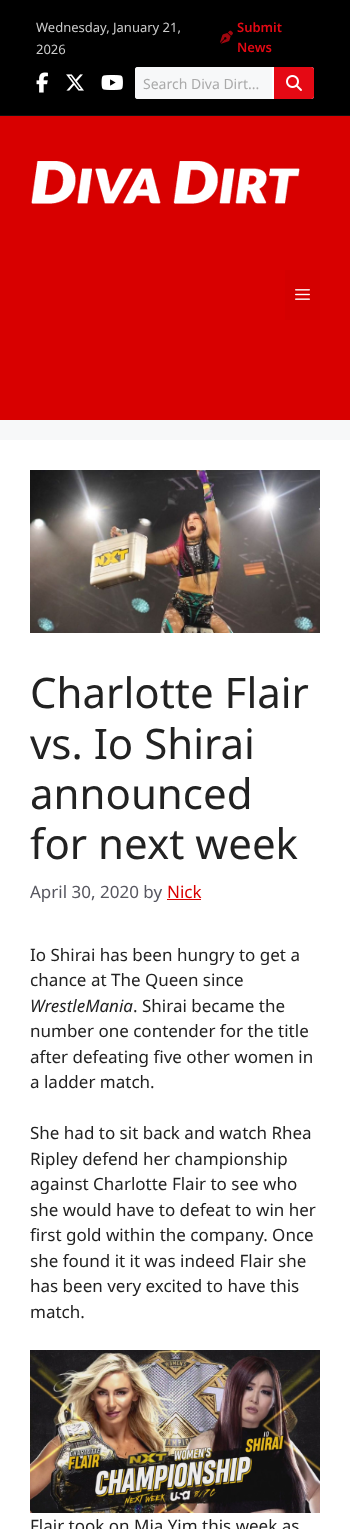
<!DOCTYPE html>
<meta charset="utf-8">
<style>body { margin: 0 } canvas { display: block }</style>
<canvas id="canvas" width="350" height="1529"></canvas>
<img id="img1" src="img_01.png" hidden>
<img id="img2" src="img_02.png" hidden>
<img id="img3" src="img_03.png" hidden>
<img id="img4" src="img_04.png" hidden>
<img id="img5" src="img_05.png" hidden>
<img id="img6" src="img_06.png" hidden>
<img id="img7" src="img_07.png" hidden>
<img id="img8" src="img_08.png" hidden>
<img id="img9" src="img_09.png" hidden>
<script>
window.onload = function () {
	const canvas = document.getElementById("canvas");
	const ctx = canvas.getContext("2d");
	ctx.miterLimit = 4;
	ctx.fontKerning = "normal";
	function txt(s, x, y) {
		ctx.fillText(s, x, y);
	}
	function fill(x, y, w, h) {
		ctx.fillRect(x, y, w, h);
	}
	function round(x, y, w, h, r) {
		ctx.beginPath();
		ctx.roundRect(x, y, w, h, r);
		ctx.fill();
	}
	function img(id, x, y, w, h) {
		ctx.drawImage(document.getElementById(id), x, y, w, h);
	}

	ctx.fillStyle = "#F7F8F9";
	fill(0, 0, 350, 1529);
	ctx.fillStyle = "#000000";
	fill(0, 0, 350, 115);
	ctx.fillStyle = "#111111";
	fill(0, 115, 350, 1);
	img("img1", 220, 30, 13, 14);
	img("img2", 36, 72, 12, 21);
	img("img3", 66, 74, 18, 17);
	img("img4", 101, 75, 22, 15);
	ctx.fillStyle = "#FFFFFF";
	round(135, 67, 179, 32, 3);
	ctx.fillStyle = "#F7F8F9";
	ctx.beginPath();
	ctx.roundRect(135, 67, 137, 32, [3, 0, 0, 3]);
	ctx.fill();
	ctx.fillStyle = "#E50914";
	ctx.beginPath();
	ctx.roundRect(274, 67, 40, 32, [0, 3, 3, 0]);
	ctx.fill();
	img("img5", 286, 75, 16, 16);
	ctx.fillStyle = "#D80000";
	fill(0, 116, 350, 304);
	img("img6", 31, 161, 269, 43);
	ctx.fillStyle = "#D40000";
	fill(285, 270, 35, 50);
	img("img7", 295, 289, 15, 11);
	ctx.fillStyle = "#FFFFFF";
	fill(0, 440, 350, 1089);
	img("img8", 30, 470, 290, 163);
	ctx.fillStyle = "#D90000";
	fill(167, 899, 34, 1);
	img("img9", 30, 1350, 290, 163);
	ctx.font = "13px Noto Sans";
	ctx.fillStyle = "#CCCCCC";
	txt("Wednesday, January 21,", 36, 32);
	txt("2026", 36, 54);
	ctx.font = "600 13px Noto Sans";
	ctx.fillStyle = "#E50914";
	txt("Submit", 237, 32);
	txt("News", 237, 52);
	ctx.font = "14px Noto Sans";
	ctx.fillStyle = "#AAAAAA";
	txt("Search Diva Dirt...", 143, 89);
	ctx.font = "42px Noto Sans";
	ctx.fillStyle = "#222222";
	txt("Charlotte Flair", 30, 708);
	txt("vs. Io Shirai", 30, 759);
	txt("announced", 30, 809);
	txt("for next week", 30, 859);
	ctx.font = "17px Noto Sans";
	ctx.fillStyle = "#575760";
	txt("April 30, 2020 by", 30, 898);
	ctx.fillStyle = "#D90000";
	txt("Nick", 167, 898);
	ctx.fillStyle = "#222222";
	txt("Io Shirai has been hungry to get a", 30, 961);
	txt("chance at The Queen since", 30, 986);
	ctx.font = "italic 17px Noto Sans";
	txt("WrestleMania", 30, 1012);
	ctx.font = "17px Noto Sans";
	txt(". Shirai became the", 133, 1012);
	txt("number one contender for the title", 30, 1037);
	txt("after defeating five other women in", 30, 1063);
	txt("a ladder match.", 30, 1088);
	txt("She had to sit back and watch Rhea", 30, 1139);
	txt("Ripley defend her championship", 30, 1165);
	txt("against Charlotte Flair to see who", 30, 1190);
	txt("she would have to defeat to win her", 30, 1216);
	txt("first gold within the company. Once", 30, 1241);
	txt("she found it it was indeed Flair she", 30, 1267);
	txt("has been very excited to have this", 30, 1292);
	txt("match.", 30, 1318);
	txt("Flair took on Mia Yim this week as", 30, 1532);
};
</script>
